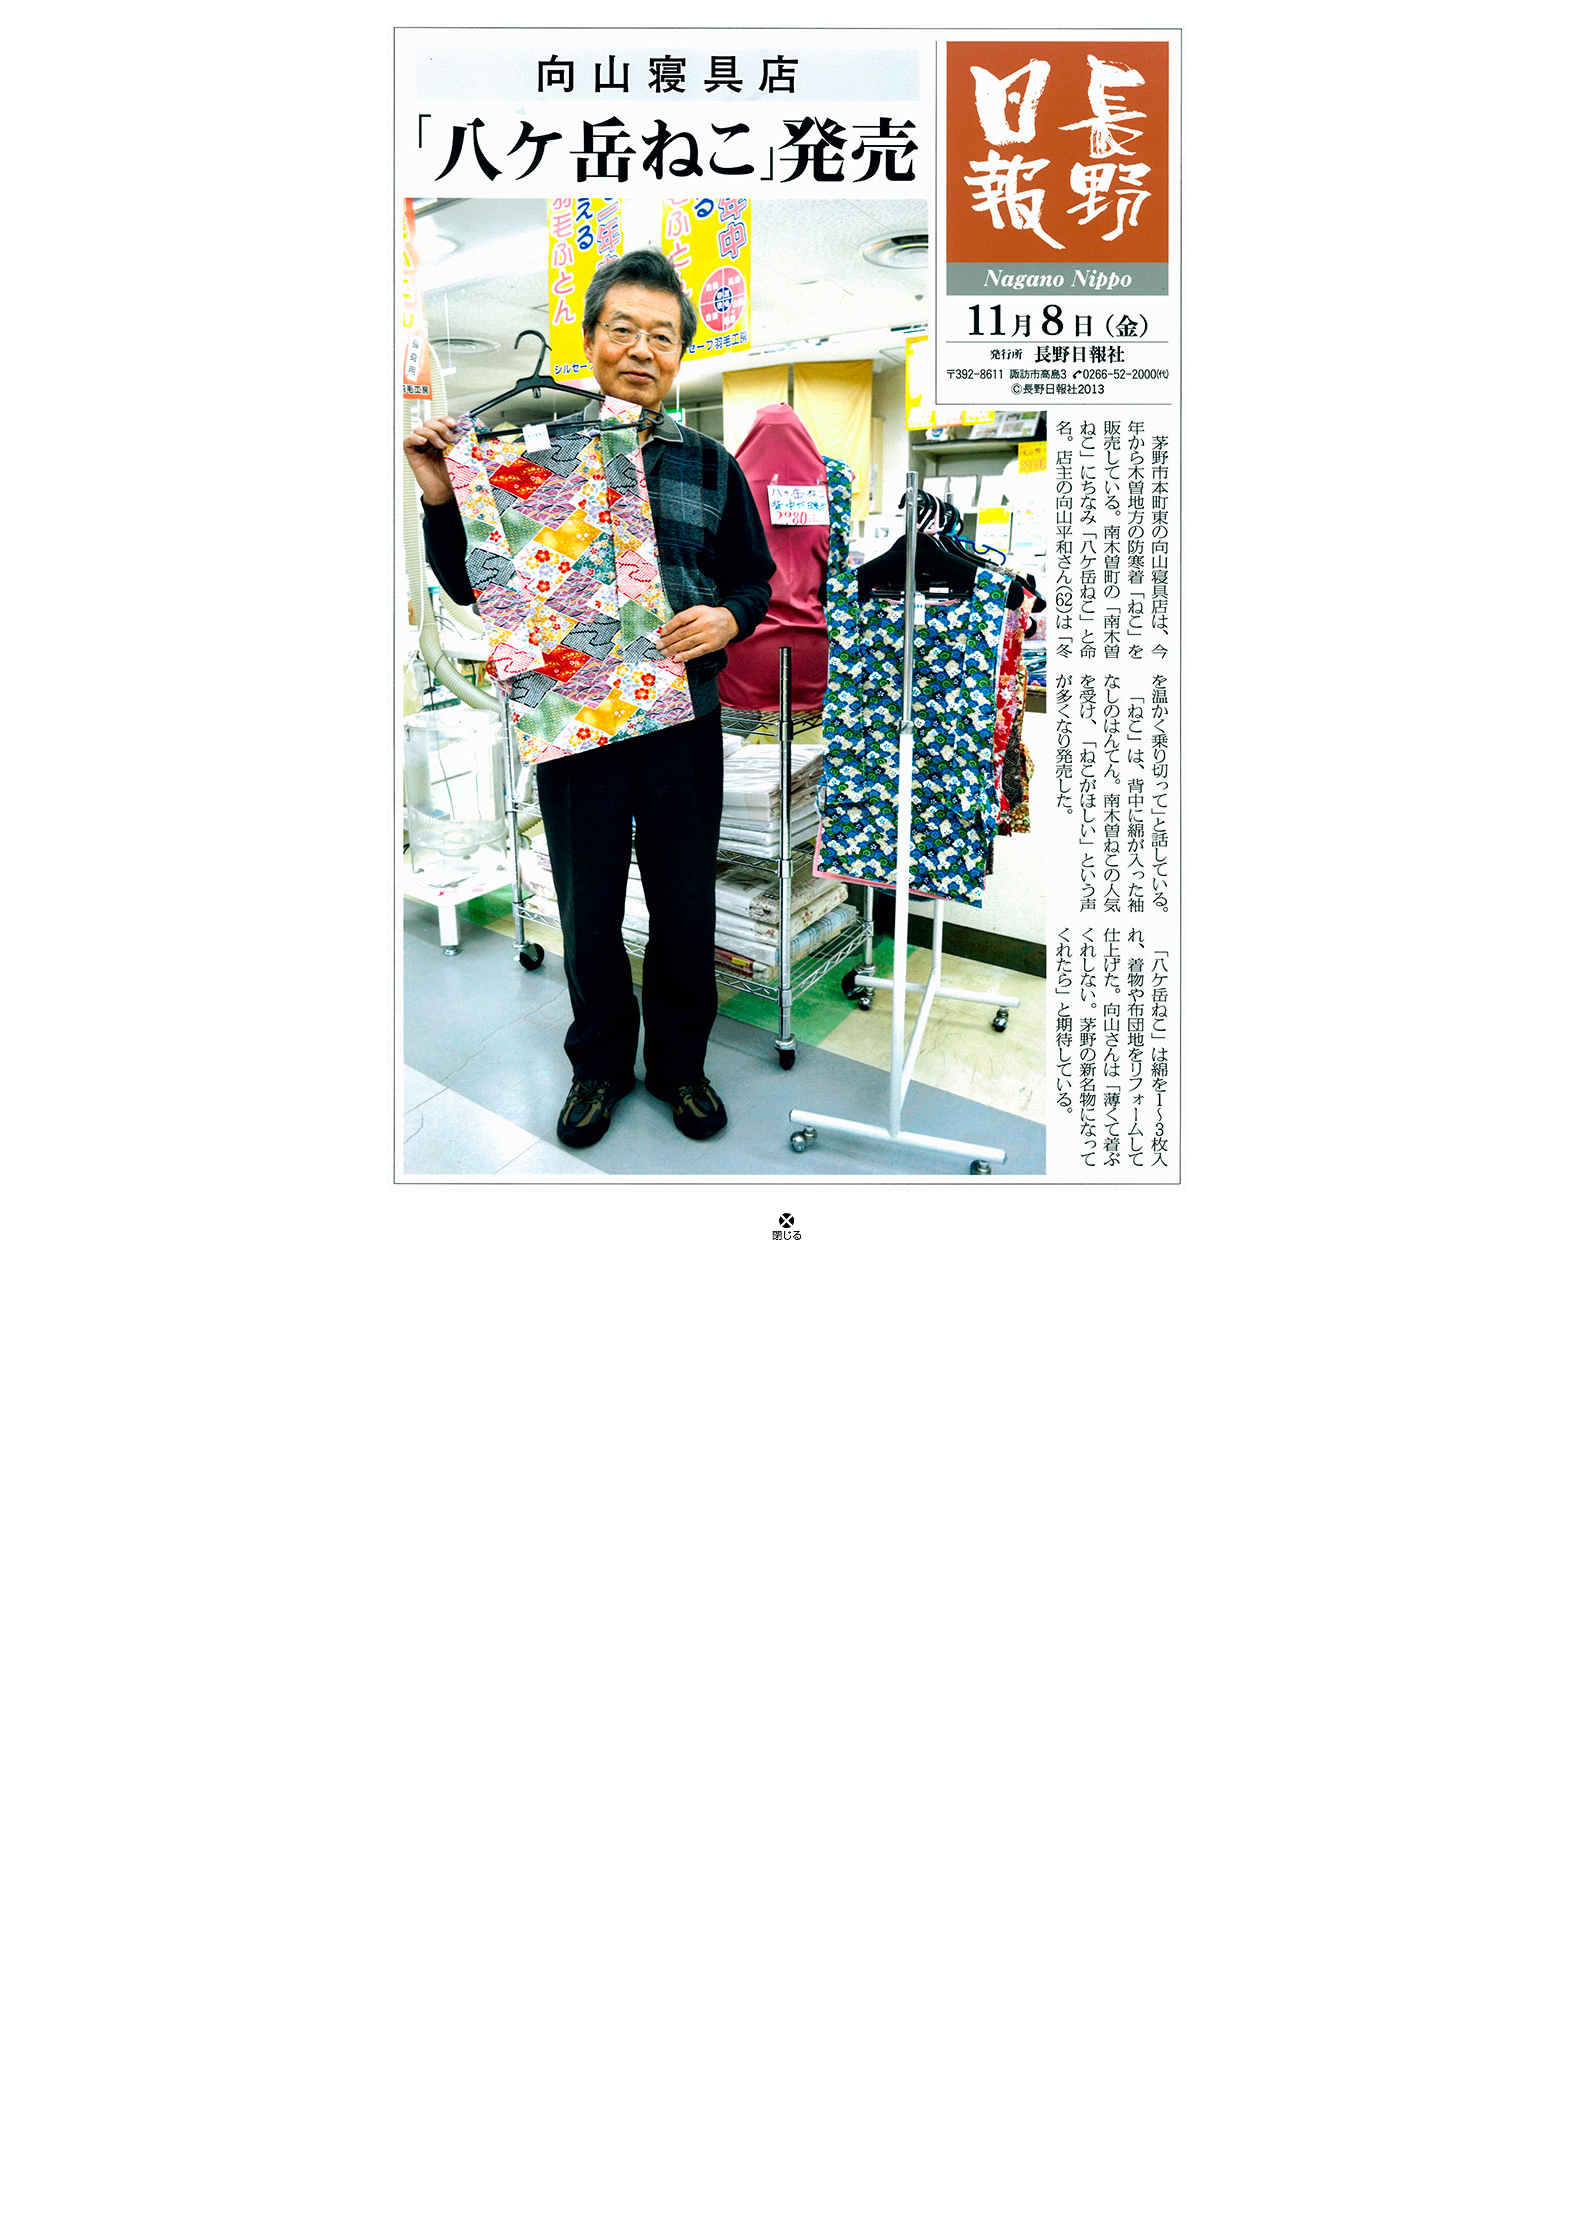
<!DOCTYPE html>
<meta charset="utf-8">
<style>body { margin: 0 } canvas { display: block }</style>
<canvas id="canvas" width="1572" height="2230"></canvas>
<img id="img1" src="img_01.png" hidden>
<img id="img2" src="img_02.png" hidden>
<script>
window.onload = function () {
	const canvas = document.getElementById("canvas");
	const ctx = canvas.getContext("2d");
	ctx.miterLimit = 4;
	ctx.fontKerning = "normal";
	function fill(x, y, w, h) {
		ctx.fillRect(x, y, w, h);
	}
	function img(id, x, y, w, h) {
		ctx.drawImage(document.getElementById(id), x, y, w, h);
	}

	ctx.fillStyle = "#FFFFFF";
	fill(0, 0, 1572, 2230);
	img("img1", 386, 24, 800, 1168);
	img("img2", 772, 1213, 29, 27);
};
</script>
